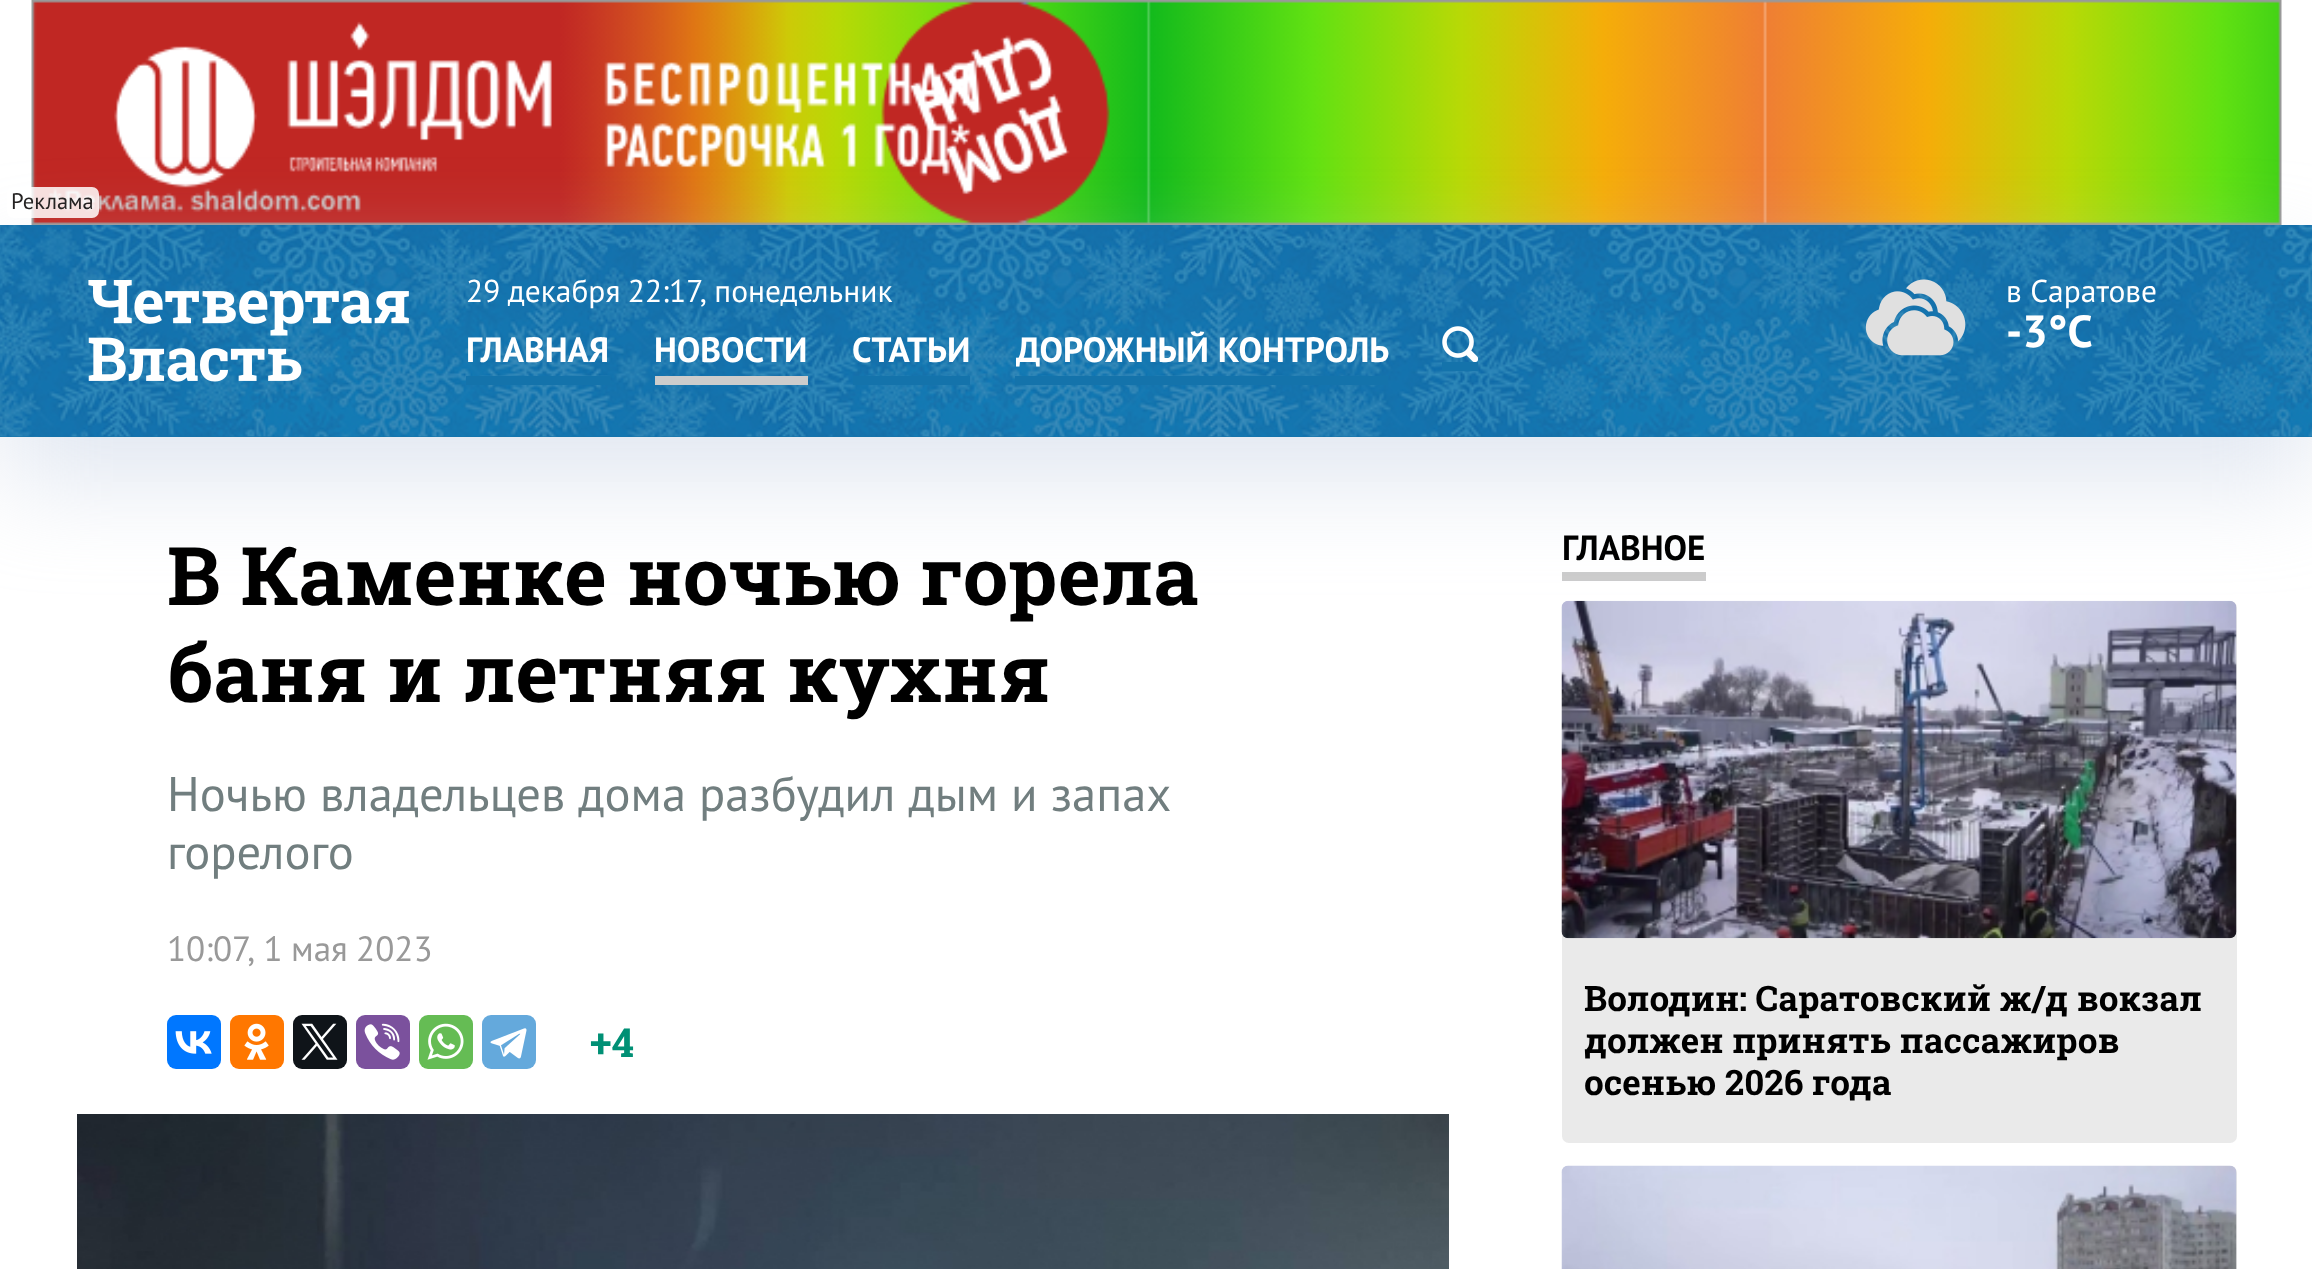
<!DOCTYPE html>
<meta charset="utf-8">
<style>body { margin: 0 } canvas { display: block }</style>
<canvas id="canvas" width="2312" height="1269"></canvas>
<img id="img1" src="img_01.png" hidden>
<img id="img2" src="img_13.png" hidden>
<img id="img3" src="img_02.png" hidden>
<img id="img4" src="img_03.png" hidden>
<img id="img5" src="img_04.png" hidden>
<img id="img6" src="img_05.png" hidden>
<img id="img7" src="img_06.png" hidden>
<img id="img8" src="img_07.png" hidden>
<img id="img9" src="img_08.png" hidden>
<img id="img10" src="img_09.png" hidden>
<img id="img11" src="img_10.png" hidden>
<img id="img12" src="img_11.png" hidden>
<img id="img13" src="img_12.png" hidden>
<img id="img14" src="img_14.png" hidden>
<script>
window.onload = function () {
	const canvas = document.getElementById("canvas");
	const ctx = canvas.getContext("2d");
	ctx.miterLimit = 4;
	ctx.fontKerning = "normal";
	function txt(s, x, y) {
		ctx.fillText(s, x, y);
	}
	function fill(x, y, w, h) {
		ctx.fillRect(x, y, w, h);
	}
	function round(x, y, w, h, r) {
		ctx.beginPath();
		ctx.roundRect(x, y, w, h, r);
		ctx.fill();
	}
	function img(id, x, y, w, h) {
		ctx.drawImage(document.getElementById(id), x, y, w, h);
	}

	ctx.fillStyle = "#FFFFFF";
	fill(0, 0, 2312, 1269);
	img("img1", 31, 0, 2251, 225);
	ctx.fillStyle = "#CCCCCC";
	fill(1562, 572, 144, 9);
	ctx.fillStyle = "#EAEAEA";
	round(1562, 601, 675, 542, 7);
	img("img2", 1561, 600, 676, 339);
	ctx.fillStyle = "rgba(196, 208, 227, 0.5)";
	ctx.filter = "blur(49.5px)";
	ctx.beginPath();
	ctx.rect(0, 270, 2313, 212);
	ctx.fill();
	ctx.filter = "none";
	ctx.fillStyle = "rgba(255, 255, 255, 0.85)";
	round(7, 187, 92, 31, 7);
	ctx.fillStyle = "#1473AB";
	fill(0, 225, 2312, 212);
	img("img3", 0, 225, 2312, 212);
	img("img4", 88, 280, 321, 102);
	fill(466, 376, 144, 9);
	ctx.fillStyle = "#CCCCCC";
	fill(655, 376, 153, 9);
	ctx.fillStyle = "#1473AB";
	fill(853, 376, 117, 9);
	fill(1015, 376, 373, 9);
	fill(1442, 362, 36, 9);
	img("img5", 1442, 326, 36, 36);
	img("img6", 1865, 279, 101, 77);
	ctx.fillStyle = "#0077FF";
	round(167, 1015, 54, 54, 9);
	img("img7", 175, 1031, 37, 23);
	ctx.fillStyle = "#FF7700";
	round(230, 1015, 54, 54, 9);
	img("img8", 244, 1023, 25, 37);
	ctx.fillStyle = "#0F1419";
	round(293, 1015, 54, 54, 9);
	img("img9", 301, 1023, 37, 37);
	ctx.fillStyle = "#7B519D";
	round(356, 1015, 54, 54, 9);
	img("img10", 364, 1023, 36, 37);
	ctx.fillStyle = "#65BC54";
	round(419, 1015, 54, 54, 9);
	img("img11", 427, 1023, 37, 37);
	ctx.fillStyle = "#64A9DC";
	round(482, 1015, 54, 54, 9);
	img("img12", 490, 1028, 37, 31);
	img("img13", 77, 1114, 1372, 155);
	ctx.fillStyle = "#EAEAEA";
	round(1562, 1166, 675, 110, 7);
	img("img14", 1561, 1165, 676, 104);
	ctx.font = "22.5px PT Sans";
	ctx.fillStyle = "#252323";
	txt("Реклама", 11, 209);
	ctx.wordSpacing = "-1px";
	ctx.font = "31.5px PT Sans";
	ctx.fillStyle = "#FFFFFF";
	txt("29 декабря 22:17, понедельник", 466, 302);
	ctx.wordSpacing = "0px";
	ctx.font = "bold 35.1px PT Sans";
	txt("ГЛАВНАЯ", 466, 362);
	txt("НОВОСТИ", 654, 362);
	txt("СТАТЬИ", 852, 362);
	txt("ДОРОЖНЫЙ КОНТРОЛЬ", 1016, 362);
	ctx.font = "31.5px PT Sans";
	txt("в Саратове", 2006, 302);
	ctx.font = "bold 45px PT Sans";
	txt("-3°C", 2006, 347);
	ctx.font = "bold 81px Roboto Slab";
	ctx.fillStyle = "#000000";
	txt("В Каменке ночью горела", 167, 605);
	txt("баня и летняя кухня", 167, 702);
	ctx.font = "48.6px PT Sans";
	ctx.fillStyle = "#717E7F";
	txt("Ночью владельцев дома разбудил дым и запах", 167, 811);
	txt("горелого", 167, 869);
	ctx.wordSpacing = "-1px";
	ctx.font = "35.1px PT Sans";
	ctx.fillStyle = "#999999";
	txt("10:07, 1 мая 2023", 167, 961);
	ctx.wordSpacing = "0px";
	ctx.font = "bold 40px Roboto Slab";
	ctx.fillStyle = "#009075";
	txt("+4", 590, 1057);
	ctx.font = "bold 35.1px PT Sans";
	ctx.fillStyle = "#000000";
	txt("ГЛАВНОЕ", 1562, 560);
	ctx.font = "bold 35.1px Roboto Slab";
	txt("Володин: Саратовский ж/д вокзал", 1584, 1011);
	txt("должен принять пассажиров", 1584, 1053);
	txt("осенью 2026 года", 1584, 1095);
};
</script>
